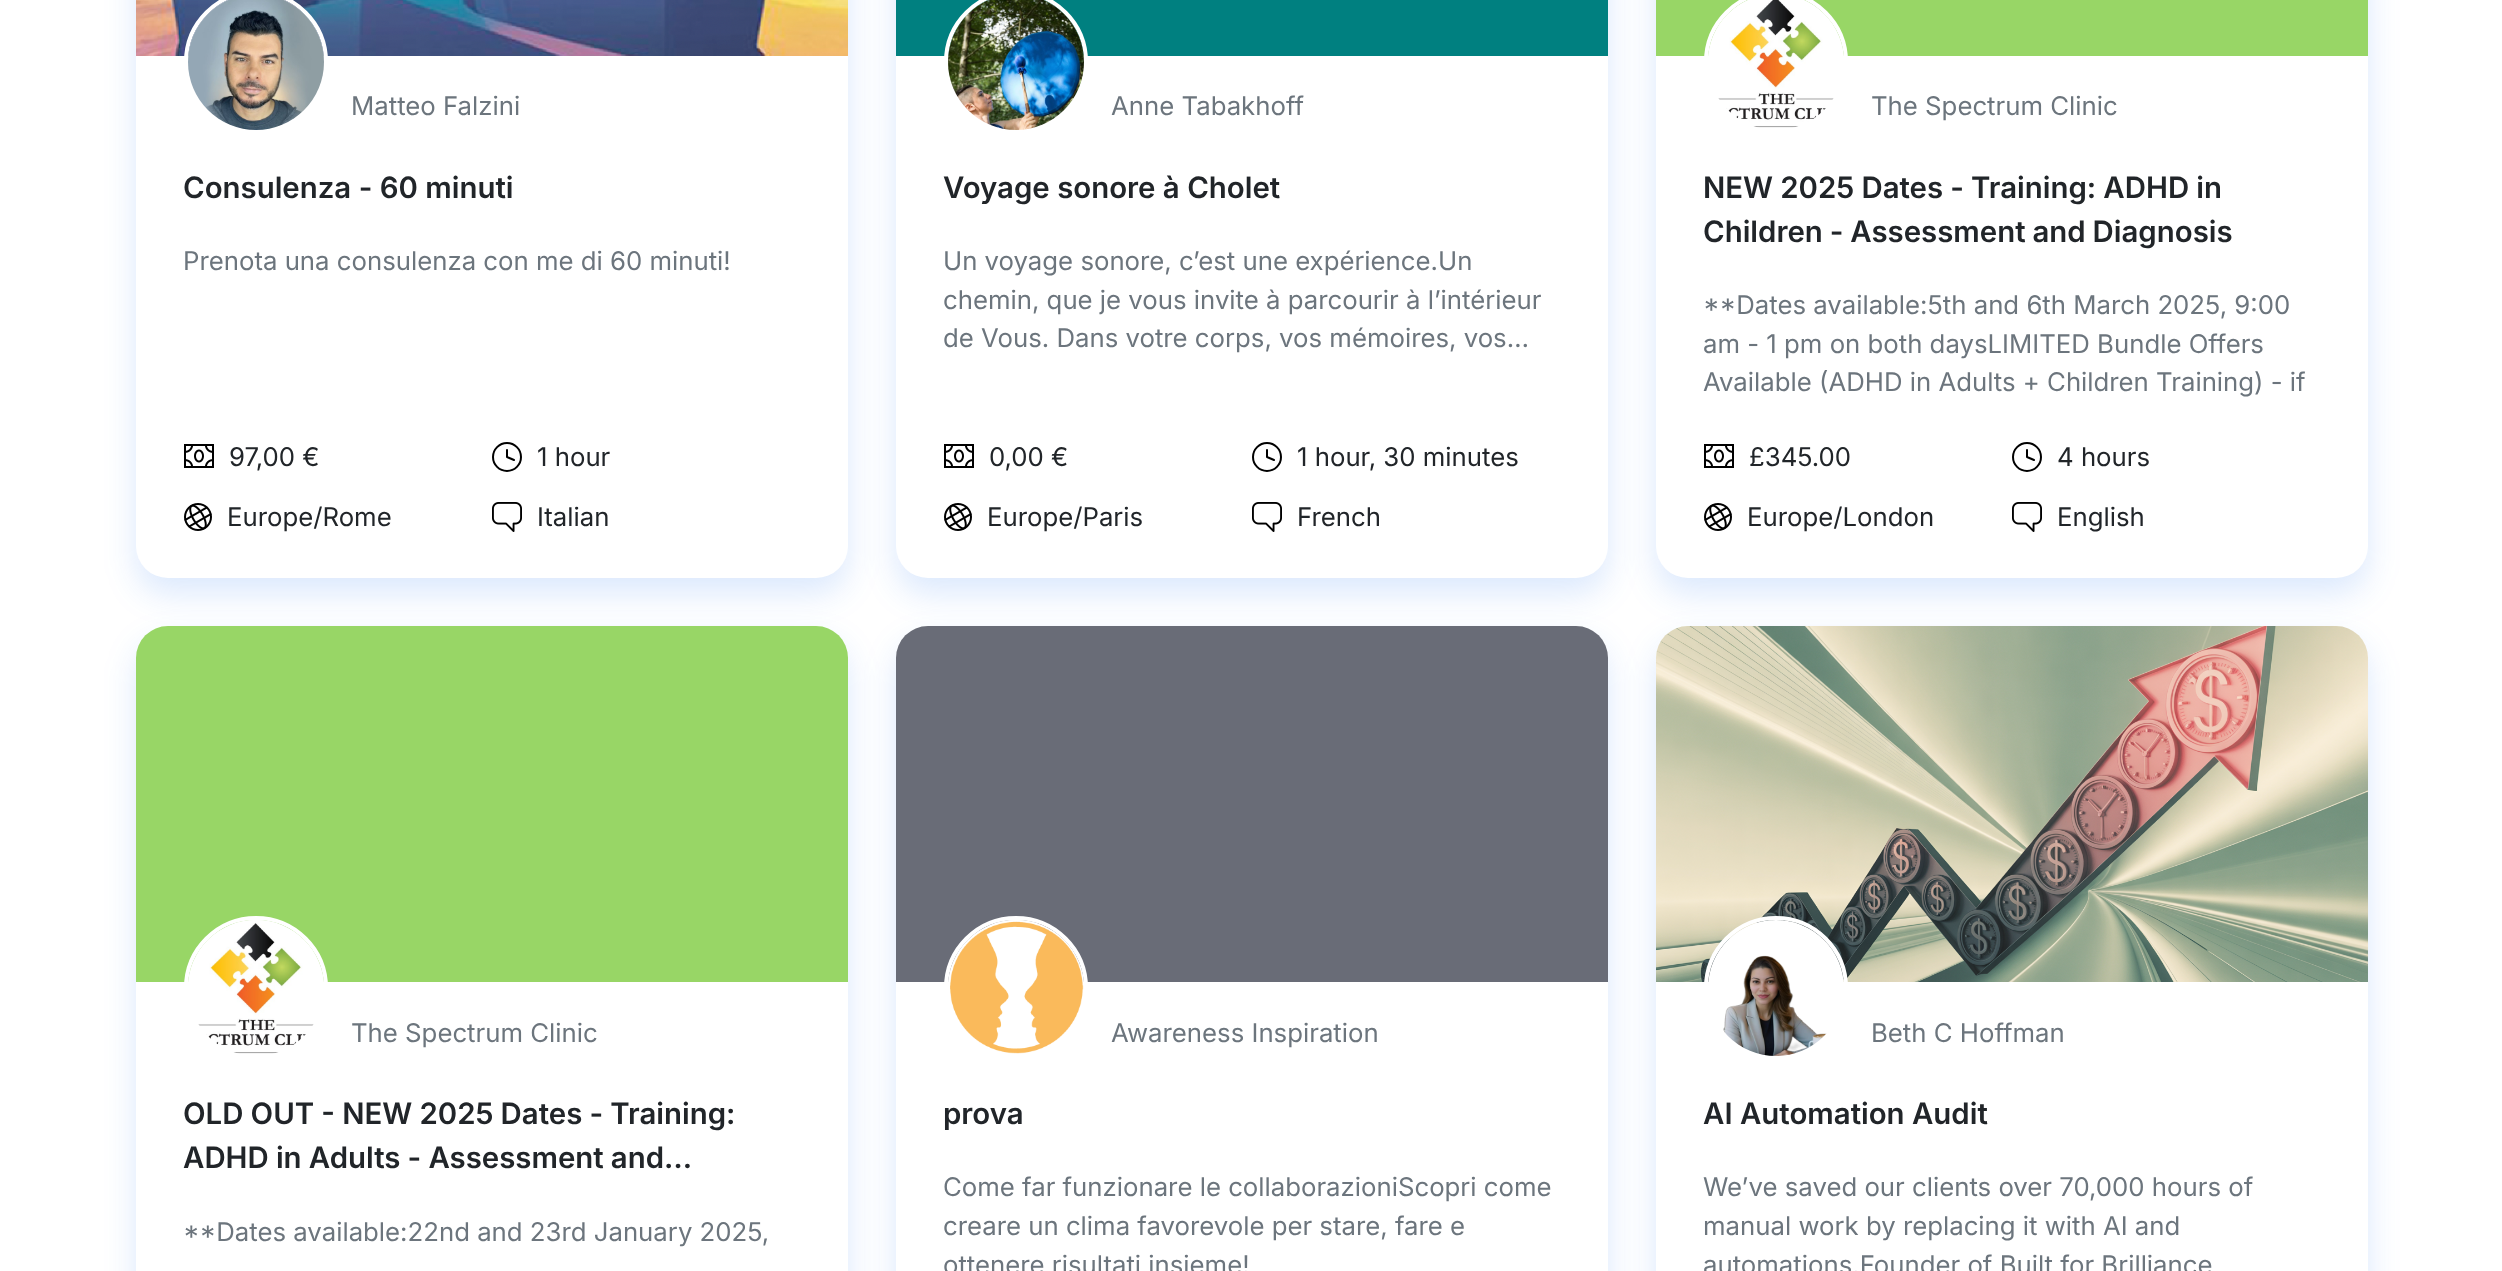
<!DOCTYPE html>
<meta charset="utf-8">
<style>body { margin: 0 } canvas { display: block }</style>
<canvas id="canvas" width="2502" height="1271"></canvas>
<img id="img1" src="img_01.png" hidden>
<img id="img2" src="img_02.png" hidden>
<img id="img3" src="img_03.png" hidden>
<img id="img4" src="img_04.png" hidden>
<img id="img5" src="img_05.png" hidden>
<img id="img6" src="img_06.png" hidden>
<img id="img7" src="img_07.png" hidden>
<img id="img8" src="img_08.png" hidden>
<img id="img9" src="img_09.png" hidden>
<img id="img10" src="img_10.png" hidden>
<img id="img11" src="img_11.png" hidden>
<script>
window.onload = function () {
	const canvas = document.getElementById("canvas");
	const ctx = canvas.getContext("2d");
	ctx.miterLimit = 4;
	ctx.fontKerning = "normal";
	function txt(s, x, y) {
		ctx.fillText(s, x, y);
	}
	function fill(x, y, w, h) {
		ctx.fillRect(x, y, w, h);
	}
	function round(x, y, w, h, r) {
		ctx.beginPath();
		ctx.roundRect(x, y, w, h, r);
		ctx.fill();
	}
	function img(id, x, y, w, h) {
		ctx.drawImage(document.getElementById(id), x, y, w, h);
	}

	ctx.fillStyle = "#FFFFFF";
	fill(0, 0, 2502, 1271);
	ctx.fillStyle = "rgba(21, 105, 239, 0.15)";
	ctx.filter = "blur(16px)";
	ctx.beginPath();
	ctx.roundRect(136, -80, 712, 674, 32);
	ctx.fill();
	ctx.filter = "none";
	ctx.fillStyle = "#FFFFFF";
	round(136, -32, 712, 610, 32);
	img("img1", 136, 0, 712, 56);
	ctx.beginPath();
	ctx.arc(256, 62, 70, 0, Math.PI * 2);
	ctx.strokeStyle = "#FFFFFF";
	ctx.lineWidth = 4;
	ctx.stroke();
	ctx.beginPath();
	ctx.arc(256, 62, 68, 0, Math.PI * 2);
	ctx.fill();
	img("img2", 188, 0, 136, 130);
	img("img3", 184, 444, 30, 24);
	ctx.beginPath();
	ctx.arc(507, 457, 14, 0, Math.PI * 2);
	ctx.strokeStyle = "#000000";
	ctx.lineWidth = 2;
	ctx.stroke();
	ctx.beginPath();
	ctx.moveTo(507, 450);
	ctx.lineTo(507, 457);
	ctx.lineTo(514, 460);
	ctx.lineCap = "round";
	ctx.lineJoin = "round";
	ctx.stroke();
	img("img4", 184, 503, 28, 28);
	img("img5", 492, 502, 30, 30);
	ctx.fillStyle = "rgba(21, 105, 239, 0.15)";
	ctx.filter = "blur(16px)";
	ctx.beginPath();
	ctx.roundRect(896, -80, 712, 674, 32);
	ctx.fill();
	ctx.filter = "none";
	ctx.fillStyle = "#FFFFFF";
	round(896, -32, 712, 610, 32);
	ctx.fillStyle = "#008080";
	fill(896, 0, 712, 56);
	ctx.beginPath();
	ctx.arc(1016, 62, 70, 0, Math.PI * 2);
	ctx.strokeStyle = "#FFFFFF";
	ctx.lineWidth = 4;
	ctx.stroke();
	ctx.fillStyle = "#FFFFFF";
	ctx.beginPath();
	ctx.arc(1016, 62, 68, 0, Math.PI * 2);
	ctx.fill();
	img("img6", 948, 0, 136, 130);
	img("img3", 944, 444, 30, 24);
	ctx.beginPath();
	ctx.arc(1267, 457, 14, 0, Math.PI * 2);
	ctx.strokeStyle = "#000000";
	ctx.lineWidth = 2;
	ctx.stroke();
	ctx.beginPath();
	ctx.moveTo(1267, 450);
	ctx.lineTo(1267, 457);
	ctx.lineTo(1274, 460);
	ctx.stroke();
	img("img4", 944, 503, 28, 28);
	img("img5", 1252, 502, 30, 30);
	ctx.fillStyle = "rgba(21, 105, 239, 0.15)";
	ctx.filter = "blur(16px)";
	ctx.beginPath();
	ctx.roundRect(1656, -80, 712, 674, 32);
	ctx.fill();
	ctx.filter = "none";
	ctx.fillStyle = "#FFFFFF";
	round(1656, -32, 712, 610, 32);
	ctx.fillStyle = "#98D666";
	fill(1656, 0, 712, 56);
	ctx.beginPath();
	ctx.arc(1776, 62, 70, 0, Math.PI * 2);
	ctx.strokeStyle = "#FFFFFF";
	ctx.lineWidth = 4;
	ctx.stroke();
	ctx.fillStyle = "#FFFFFF";
	ctx.beginPath();
	ctx.arc(1776, 62, 68, 0, Math.PI * 2);
	ctx.fill();
	img("img7", 1708, 0, 136, 128);
	img("img3", 1704, 444, 30, 24);
	ctx.beginPath();
	ctx.arc(2027, 457, 14, 0, Math.PI * 2);
	ctx.strokeStyle = "#000000";
	ctx.lineWidth = 2;
	ctx.stroke();
	ctx.beginPath();
	ctx.moveTo(2027, 450);
	ctx.lineTo(2027, 457);
	ctx.lineTo(2034, 460);
	ctx.stroke();
	img("img4", 1704, 503, 28, 28);
	img("img5", 2012, 502, 30, 30);
	ctx.fillStyle = "rgba(21, 105, 239, 0.15)";
	ctx.filter = "blur(16px)";
	ctx.beginPath();
	ctx.roundRect(136, 642, 712, 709, 32);
	ctx.fill();
	ctx.filter = "none";
	ctx.fillStyle = "#FFFFFF";
	round(136, 626, 712, 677, 32);
	ctx.fillStyle = "#98D666";
	ctx.beginPath();
	ctx.roundRect(136, 626, 712, 356, [32, 32, 0, 0]);
	ctx.fill();
	ctx.beginPath();
	ctx.arc(256, 988, 70, 0, Math.PI * 2);
	ctx.strokeStyle = "#FFFFFF";
	ctx.lineWidth = 4;
	ctx.stroke();
	ctx.fillStyle = "#FFFFFF";
	ctx.beginPath();
	ctx.arc(256, 988, 68, 0, Math.PI * 2);
	ctx.fill();
	img("img8", 188, 920, 136, 134);
	ctx.fillStyle = "rgba(21, 105, 239, 0.15)";
	ctx.filter = "blur(16px)";
	ctx.beginPath();
	ctx.roundRect(896, 642, 712, 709, 32);
	ctx.fill();
	ctx.filter = "none";
	ctx.fillStyle = "#FFFFFF";
	round(896, 626, 712, 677, 32);
	ctx.fillStyle = "#696C77";
	ctx.beginPath();
	ctx.roundRect(896, 626, 712, 356, [32, 32, 0, 0]);
	ctx.fill();
	ctx.beginPath();
	ctx.arc(1016, 988, 70, 0, Math.PI * 2);
	ctx.stroke();
	ctx.fillStyle = "#FFFFFF";
	ctx.beginPath();
	ctx.arc(1016, 988, 68, 0, Math.PI * 2);
	ctx.fill();
	img("img9", 948, 920, 136, 134);
	ctx.fillStyle = "rgba(21, 105, 239, 0.15)";
	ctx.filter = "blur(16px)";
	ctx.beginPath();
	ctx.roundRect(1656, 642, 712, 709, 32);
	ctx.fill();
	ctx.filter = "none";
	ctx.fillStyle = "#FFFFFF";
	round(1656, 626, 712, 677, 32);
	img("img10", 1656, 626, 712, 356);
	ctx.beginPath();
	ctx.arc(1776, 988, 70, 0, Math.PI * 2);
	ctx.stroke();
	ctx.beginPath();
	ctx.arc(1776, 988, 68, 0, Math.PI * 2);
	ctx.fill();
	img("img11", 1723, 955, 104, 101);
	ctx.font = "25.75px Inter";
	ctx.fillStyle = "#6C757D";
	txt("Matteo Falzini", 351, 115);
	ctx.font = "600 29.4px Inter";
	ctx.fillStyle = "#212529";
	txt("Consulenza - 60 minuti", 183, 198);
	ctx.font = "25.75px Inter";
	ctx.fillStyle = "#6C757D";
	txt("Prenota una consulenza con me di 60 minuti!", 183, 270);
	ctx.fillStyle = "#212529";
	txt("97,00 €", 229, 466);
	txt("1 hour", 537, 466);
	txt("Europe/Rome", 227, 526);
	txt("Italian", 537, 526);
	ctx.fillStyle = "#6C757D";
	txt("Anne Tabakhoff", 1111, 115);
	ctx.font = "600 29.4px Inter";
	ctx.fillStyle = "#212529";
	txt("Voyage sonore à Cholet", 943, 198);
	ctx.font = "25.75px Inter";
	ctx.fillStyle = "#6C757D";
	txt("Un voyage sonore, c’est une expérience.Un", 943, 270);
	txt("chemin, que je vous invite à parcourir à l’intérieur", 943, 309);
	txt("de Vous. Dans votre corps, vos mémoires, vos…", 943, 347);
	ctx.fillStyle = "#212529";
	txt("0,00 €", 989, 466);
	txt("1 hour, 30 minutes", 1297, 466);
	txt("Europe/Paris", 987, 526);
	txt("French", 1297, 526);
	ctx.fillStyle = "#6C757D";
	txt("The Spectrum Clinic", 1871, 115);
	ctx.wordSpacing = "-0.25px";
	ctx.font = "600 29.4px Inter";
	ctx.fillStyle = "#212529";
	txt("NEW 2025 Dates - Training: ADHD in", 1703, 198);
	ctx.wordSpacing = "-0.5px";
	txt("Children - Assessment and Diagnosis", 1703, 242);
	ctx.wordSpacing = "0px";
	ctx.font = "25.75px Inter";
	ctx.fillStyle = "#6C757D";
	txt("**Dates available:5th and 6th March 2025, 9:00", 1703, 314);
	txt("am - 1 pm on both daysLIMITED Bundle Offers", 1703, 353);
	txt("Available (ADHD in Adults + Children Training) - if", 1703, 391);
	ctx.fillStyle = "#212529";
	txt("£345.00", 1749, 466);
	txt("4 hours", 2057, 466);
	txt("Europe/London", 1747, 526);
	txt("English", 2057, 526);
	ctx.fillStyle = "#6C757D";
	txt("The Spectrum Clinic", 351, 1042);
	ctx.wordSpacing = "-0.25px";
	ctx.font = "600 29.4px Inter";
	ctx.fillStyle = "#212529";
	txt("OLD OUT - NEW 2025 Dates - Training:", 183, 1124);
	txt("ADHD in Adults - Assessment and…", 183, 1168);
	ctx.wordSpacing = "0px";
	ctx.font = "25.75px Inter";
	ctx.fillStyle = "#6C757D";
	txt("**Dates available:22nd and 23rd January 2025,", 183, 1241);
	txt("Awareness Inspiration", 1111, 1042);
	ctx.font = "600 29.4px Inter";
	ctx.fillStyle = "#212529";
	txt("prova", 943, 1124);
	ctx.font = "25.75px Inter";
	ctx.fillStyle = "#6C757D";
	txt("Come far funzionare le collaborazioniScopri come", 943, 1196);
	txt("creare un clima favorevole per stare, fare e", 943, 1235);
	txt("ottenere risultati insieme!", 943, 1274);
	txt("Beth C Hoffman", 1871, 1042);
	ctx.font = "600 29.4px Inter";
	ctx.fillStyle = "#212529";
	txt("AI Automation Audit", 1703, 1124);
	ctx.font = "25.75px Inter";
	ctx.fillStyle = "#6C757D";
	txt("We’ve saved our clients over 70,000 hours of", 1703, 1196);
	txt("manual work by replacing it with AI and", 1703, 1235);
	txt("automations.Founder of Built for Brilliance", 1703, 1274);
};
</script>
